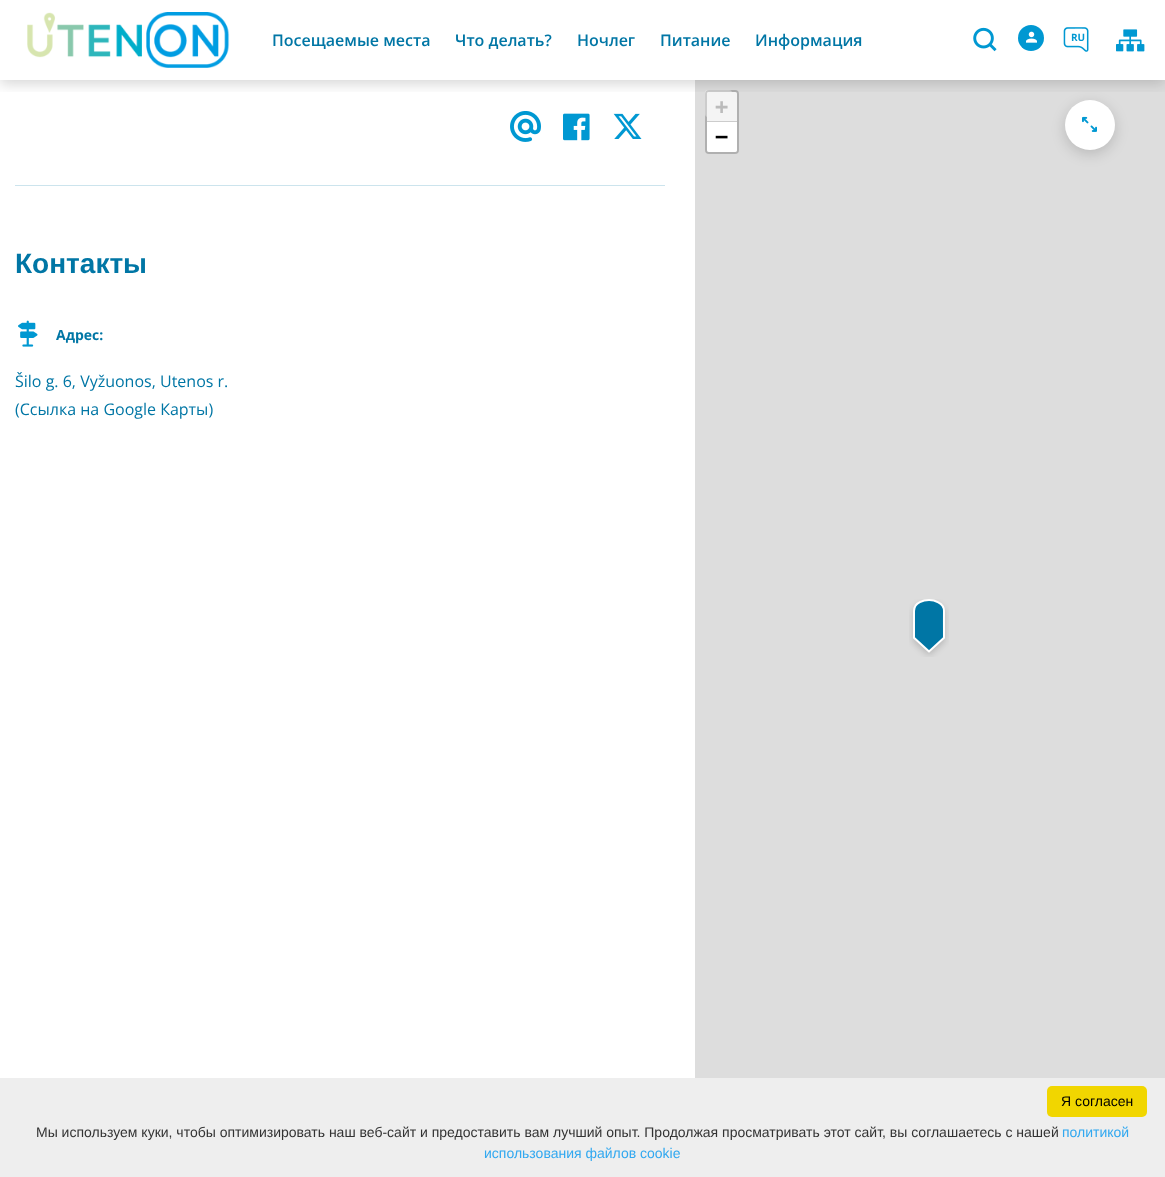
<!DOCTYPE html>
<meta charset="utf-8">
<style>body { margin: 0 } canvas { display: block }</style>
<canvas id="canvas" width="1165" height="1177"></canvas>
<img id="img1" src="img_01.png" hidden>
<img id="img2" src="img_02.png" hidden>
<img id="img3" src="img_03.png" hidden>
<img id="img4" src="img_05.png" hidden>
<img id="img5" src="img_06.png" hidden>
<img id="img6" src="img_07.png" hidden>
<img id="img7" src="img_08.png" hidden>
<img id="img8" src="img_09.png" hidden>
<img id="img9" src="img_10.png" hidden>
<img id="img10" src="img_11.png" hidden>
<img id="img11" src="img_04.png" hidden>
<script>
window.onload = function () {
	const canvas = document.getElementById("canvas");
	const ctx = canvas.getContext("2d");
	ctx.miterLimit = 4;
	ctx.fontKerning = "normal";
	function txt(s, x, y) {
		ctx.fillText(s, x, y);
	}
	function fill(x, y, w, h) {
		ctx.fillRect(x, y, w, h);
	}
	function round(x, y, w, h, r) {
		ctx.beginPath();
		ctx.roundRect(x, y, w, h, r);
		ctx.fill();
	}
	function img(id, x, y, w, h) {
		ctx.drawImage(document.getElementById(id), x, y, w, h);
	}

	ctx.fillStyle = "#FFFFFF";
	fill(0, 0, 1165, 1177);
	ctx.fillStyle = "#DDDDDD";
	fill(695, 80, 470, 998);
	ctx.fillStyle = "#FFFFFF";
	round(705, 90, 27, 27, 3);
	ctx.beginPath();
	ctx.roundRect(706, 91, 32, 62, 3);
	ctx.strokeStyle = "rgba(0, 0, 0, 0.2)";
	ctx.lineWidth = 2;
	ctx.stroke();
	ctx.fillStyle = "#F4F4F4";
	ctx.beginPath();
	ctx.roundRect(707, 92, 30, 30, [2, 2, 0, 0]);
	ctx.fill();
	ctx.fillStyle = "rgba(0, 0, 0, 0.16)";
	ctx.filter = "blur(7px)";
	ctx.beginPath();
	ctx.roundRect(1065, 104, 50, 50, 25);
	ctx.fill();
	ctx.filter = "none";
	ctx.fillStyle = "#FFFFFF";
	ctx.beginPath();
	ctx.arc(1090, 125, 25, 0, Math.PI * 2);
	ctx.fill();
	ctx.save();
	ctx.beginPath();
	ctx.rect(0, 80, 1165, 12);
	ctx.clip();
	ctx.fillStyle = "rgba(0, 0, 0, 0.16)";
	ctx.filter = "blur(7px)";
	ctx.beginPath();
	ctx.rect(0, 4, 1165, 80);
	ctx.fill();
	ctx.filter = "none";
	ctx.restore();
	img("img1", 27, 12, 203, 56);
	img("img2", 973, 27, 24, 25);
	ctx.fillStyle = "#0098D2";
	ctx.beginPath();
	ctx.arc(1031, 38, 13, 0, Math.PI * 2);
	ctx.fill();
	img("img3", 1026, 31, 11, 12);
	img("img4", 1116, 29, 29, 23);
	ctx.fillStyle = "#CCCCCC";
	fill(707, 121, 30, 1);
	ctx.fillStyle = "#FFFFFF";
	ctx.beginPath();
	ctx.roundRect(707, 122, 30, 30, [0, 0, 2, 2]);
	ctx.fill();
	img("img5", 909, 599, 40, 58);
	img("img6", 1082, 116, 15, 16);
	img("img7", 510, 111, 31, 31);
	img("img8", 563, 113, 27, 28);
	img("img9", 613, 113, 29, 26);
	ctx.fillStyle = "#CCE4ED";
	fill(15, 185, 650, 1);
	img("img10", 18, 320, 20, 27);
	ctx.fillStyle = "#EEEEEE";
	fill(0, 1078, 1165, 99);
	ctx.fillStyle = "#F1D600";
	round(1047, 1086, 100, 31, 5);
	ctx.font = "600 16px Open Sans";
	ctx.fillStyle = "#0076A5";
	txt("Посещаемые места", 272, 46);
	txt("Что делать?", 455, 46);
	txt("Ночлег", 577, 46);
	txt("Питание", 660, 46);
	txt("Информация", 755, 46);
	ctx.font = "bold 10px Open Sans";
	ctx.fillStyle = "#0098D2";
	txt("RU", 1071, 41);
	img("img11", 1063, 27, 26, 25);
	ctx.font = "bold 22px DejaVu Sans Mono";
	ctx.fillStyle = "#BBBBBB";
	txt("+", 715, 114);
	ctx.fillStyle = "#000000";
	txt("−", 715, 144);
	ctx.font = "bold 28px Liberation Sans";
	ctx.fillStyle = "#0076A5";
	txt("Контакты", 15, 273);
	ctx.font = "bold 14px Open Sans";
	txt("Адрес:", 56, 340);
	ctx.font = "16px Open Sans";
	txt("Šilo g. 6, Vyžuonos, Utenos r.", 15, 387);
	txt("(Ссылка на Google Карты)", 15, 415);
	ctx.font = "14px Liberation Sans";
	ctx.fillStyle = "#000000";
	txt("Я согласен", 1061, 1106);
	ctx.fillStyle = "#333333";
	txt("Мы используем куки, чтобы оптимизировать наш веб-сайт и предоставить вам лучший опыт. Продолжая просматривать этот сайт, вы соглашаетесь с нашей", 36, 1137);
	ctx.fillStyle = "#31A8F0";
	txt("политикой", 1062, 1137);
	txt("использования файлов cookie", 484, 1158);
};
</script>
